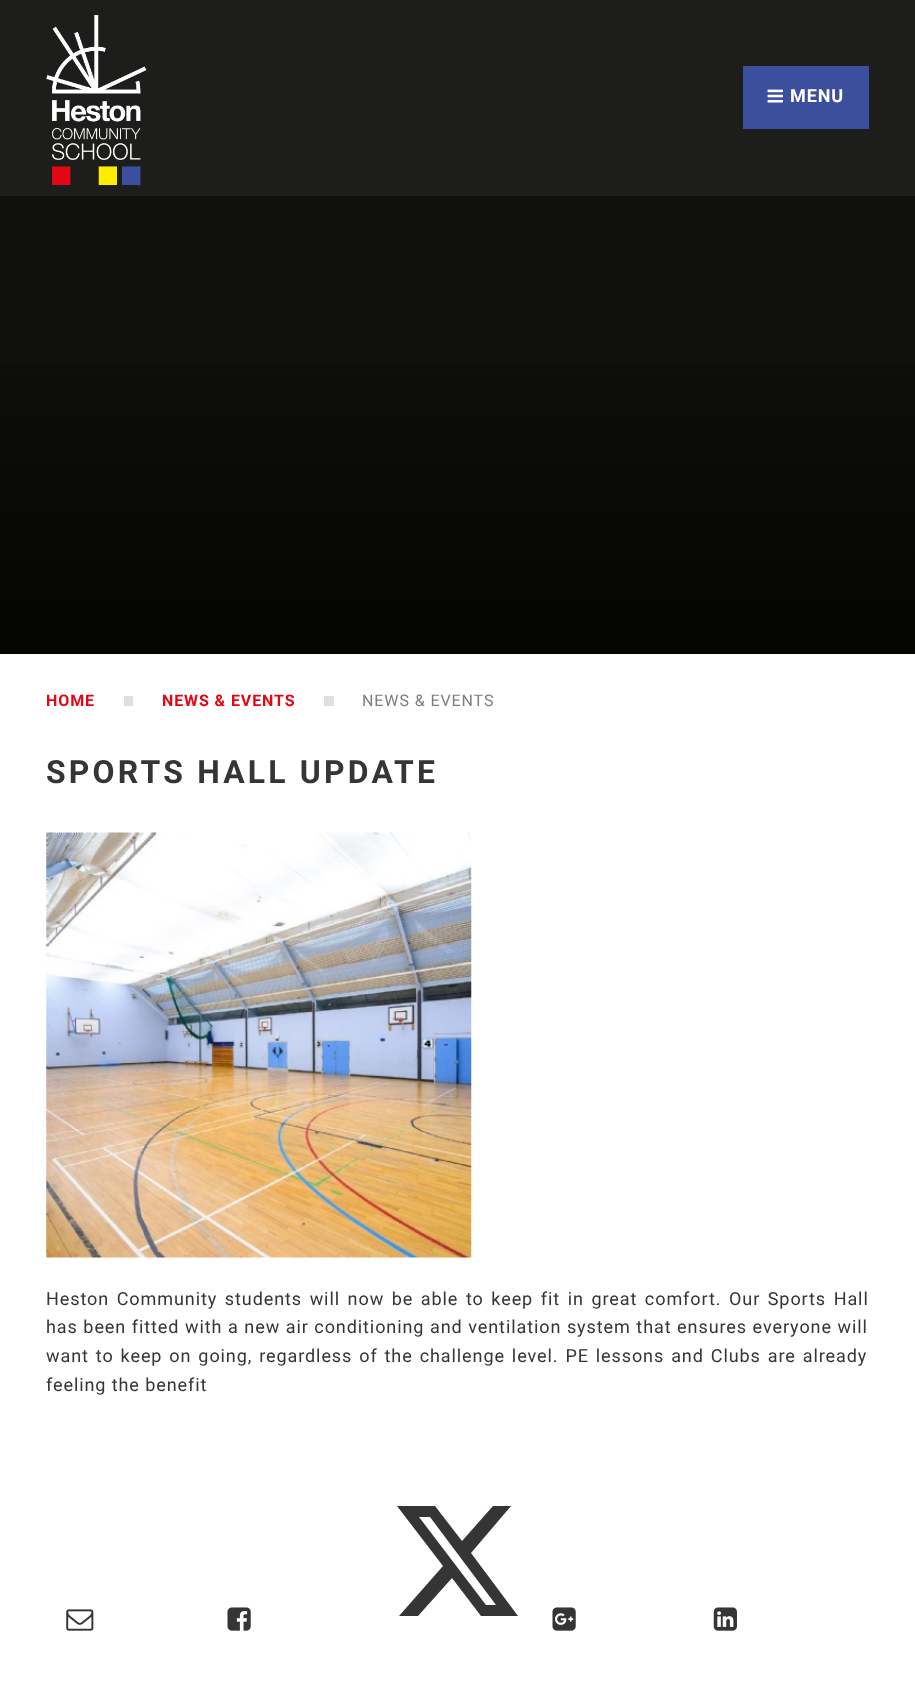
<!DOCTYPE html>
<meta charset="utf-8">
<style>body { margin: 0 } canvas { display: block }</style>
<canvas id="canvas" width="915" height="1695"></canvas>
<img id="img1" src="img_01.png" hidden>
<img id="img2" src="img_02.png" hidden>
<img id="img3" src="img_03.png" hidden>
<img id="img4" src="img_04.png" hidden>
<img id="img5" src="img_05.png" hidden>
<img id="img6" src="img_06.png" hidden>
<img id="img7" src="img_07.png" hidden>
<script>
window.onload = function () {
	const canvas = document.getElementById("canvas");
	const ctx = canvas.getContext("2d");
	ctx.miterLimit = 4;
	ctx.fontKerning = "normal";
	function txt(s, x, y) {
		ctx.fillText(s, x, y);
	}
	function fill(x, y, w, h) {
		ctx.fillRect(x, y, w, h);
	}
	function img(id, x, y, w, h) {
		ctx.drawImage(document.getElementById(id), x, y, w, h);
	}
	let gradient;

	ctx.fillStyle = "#10100F";
	fill(0, 0, 915, 1695);
	ctx.fillStyle = "#1D1D1B";
	fill(0, 0, 915, 196);
	img("img1", 46, 15, 101, 170);
	ctx.fillStyle = "#3C4F9D";
	fill(743, 66, 126, 63);
	img("img2", 767, 89, 16, 14);
	gradient = ctx.createLinearGradient(458, 287, 458, 654);
	gradient.addColorStop(0, "#10100F");
	gradient.addColorStop(1, "#040403");
	ctx.fillStyle = gradient;
	fill(0, 363, 915, 291);
	ctx.fillStyle = "#FFFFFF";
	fill(0, 654, 915, 1041);
	ctx.fillStyle = "#DFDFDF";
	fill(124, 696, 9, 10);
	fill(324, 696, 10, 10);
	img("img3", 46, 832, 426, 426);
	ctx.fillStyle = "#353535";
	ctx.beginPath();
	ctx.moveTo(493, 1506);
	ctx.lineTo(511, 1506);
	ctx.lineTo(471, 1553);
	ctx.lineTo(518, 1616);
	ctx.lineTo(481, 1616);
	ctx.lineTo(452, 1578);
	ctx.lineTo(418, 1616);
	ctx.lineTo(399, 1616);
	ctx.lineTo(443, 1566);
	ctx.lineTo(397, 1506);
	ctx.lineTo(435, 1506);
	ctx.lineTo(462, 1541);
	ctx.closePath();
	ctx.moveTo(486, 1605);
	ctx.lineTo(496, 1605);
	ctx.lineTo(430, 1517);
	ctx.lineTo(419, 1517);
	ctx.closePath();
	ctx.fill();
	img("img4", 66, 1609, 28, 22);
	img("img5", 227, 1607, 24, 24);
	img("img6", 552, 1607, 24, 24);
	img("img7", 713, 1607, 24, 24);
	ctx.letterSpacing = "0.9px";
	ctx.font = "bold 18.05px Roboto";
	ctx.fillStyle = "#FFFFFF";
	txt("MENU", 790, 102);
	ctx.font = "bold 16px Roboto";
	ctx.fillStyle = "#E30613";
	txt("HOME", 46, 706);
	txt("NEWS & EVENTS", 162, 706);
	ctx.font = "16px Roboto";
	ctx.fillStyle = "#7D7D7D";
	txt("NEWS & EVENTS", 362, 706);
	ctx.letterSpacing = "3.2px";
	ctx.font = "bold 31.9px Roboto";
	ctx.fillStyle = "#353535";
	txt("SPORTS HALL UPDATE", 46, 783);
	ctx.letterSpacing = "0.9px";
	ctx.wordSpacing = "2.25px";
	ctx.font = "18.05px Roboto";
	txt("Heston Community students will now be able to keep fit in great comfort. Our Sports Hall", 46, 1305);
	ctx.wordSpacing = "0.25px";
	txt("has been fitted with a new air conditioning and ventilation system that ensures everyone will", 46, 1333);
	ctx.wordSpacing = "1.6px";
	txt("want to keep on going, regardless of the challenge level. PE lessons and Clubs are already", 46, 1362);
	ctx.wordSpacing = "0px";
	txt("feeling the benefit", 46, 1391);
};
</script>
